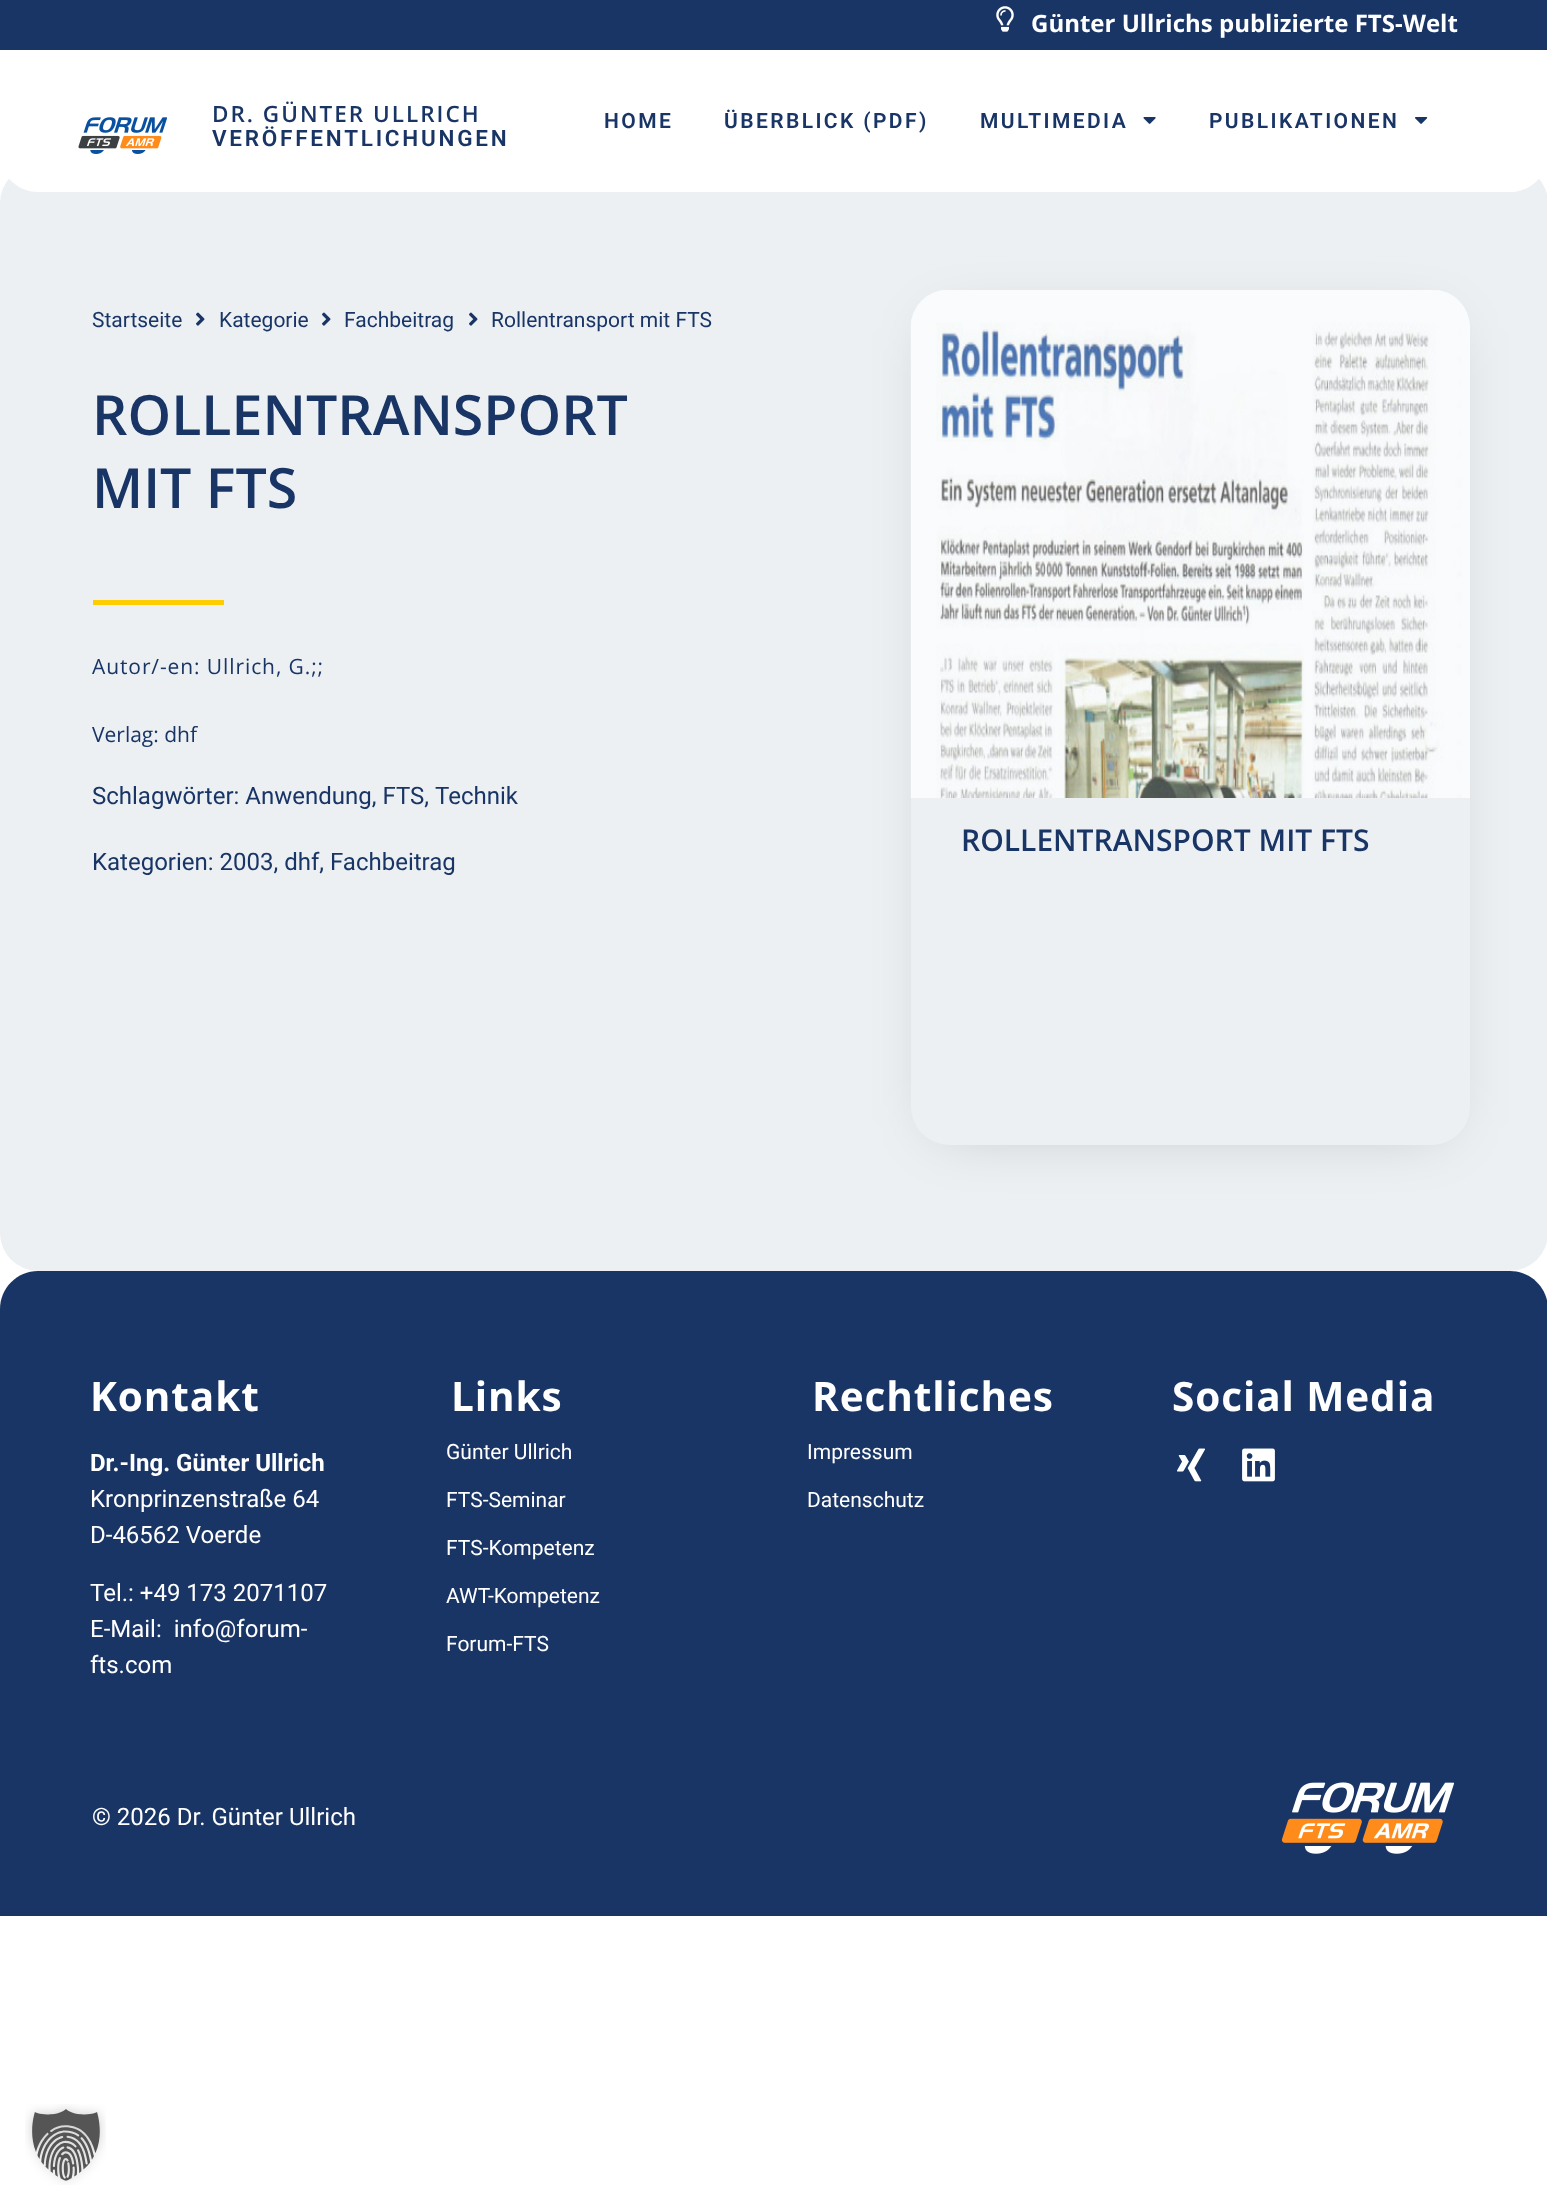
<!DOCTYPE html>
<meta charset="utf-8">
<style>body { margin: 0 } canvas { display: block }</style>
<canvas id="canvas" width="1547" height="2210"></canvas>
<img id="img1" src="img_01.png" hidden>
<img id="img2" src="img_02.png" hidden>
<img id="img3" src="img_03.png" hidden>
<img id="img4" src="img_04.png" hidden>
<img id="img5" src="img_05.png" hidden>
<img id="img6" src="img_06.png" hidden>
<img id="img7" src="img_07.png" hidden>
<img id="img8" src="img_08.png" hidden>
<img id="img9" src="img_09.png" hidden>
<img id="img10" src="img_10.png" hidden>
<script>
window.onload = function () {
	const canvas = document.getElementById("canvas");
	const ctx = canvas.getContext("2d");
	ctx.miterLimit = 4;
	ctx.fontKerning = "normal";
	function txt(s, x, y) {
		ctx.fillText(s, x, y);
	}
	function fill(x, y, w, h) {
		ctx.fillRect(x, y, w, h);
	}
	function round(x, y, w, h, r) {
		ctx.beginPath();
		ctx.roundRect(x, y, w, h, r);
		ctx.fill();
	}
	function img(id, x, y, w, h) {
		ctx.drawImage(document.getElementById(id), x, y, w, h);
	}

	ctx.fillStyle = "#FFFFFF";
	fill(0, 0, 1547, 2210);
	ctx.fillStyle = "#193566";
	fill(0, 0, 1547, 50);
	img("img1", 996, 6, 18, 26);
	ctx.fillStyle = "#ECF0F3";
	round(0, 165, 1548, 1106, 38);
	ctx.fillStyle = "#FFFFFF";
	ctx.beginPath();
	ctx.moveTo(0, 50);
	ctx.lineTo(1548, 50);
	ctx.lineTo(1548, 154);
	ctx.bezierCurveTo(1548, 175, 1531, 192, 1510, 192);
	ctx.lineTo(38, 192);
	ctx.bezierCurveTo(17, 192, 0, 175, 0, 154);
	ctx.closePath();
	ctx.fill();
	img("img2", 78, 117, 89, 37);
	img("img3", 1143, 117, 13, 7);
	img("img4", 1415, 117, 13, 7);
	img("img5", 196, 312, 9, 14);
	img("img5", 322, 312, 9, 14);
	img("img5", 469, 312, 9, 14);
	ctx.fillStyle = "#FFCC00";
	fill(93, 600, 131, 5);
	ctx.fillStyle = "rgba(0, 0, 0, 0.2)";
	ctx.filter = "blur(31.5px)";
	ctx.beginPath();
	ctx.roundRect(938, 327, 505, 801, 11);
	ctx.fill();
	ctx.filter = "none";
	ctx.fillStyle = "#ECF0F3";
	round(911, 290, 559, 855, 38);
	img("img6", 910, 290, 560, 508);
	ctx.fillStyle = "#193566";
	ctx.beginPath();
	ctx.moveTo(38, 1271);
	ctx.lineTo(1510, 1271);
	ctx.bezierCurveTo(1531, 1271, 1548, 1288, 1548, 1309);
	ctx.lineTo(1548, 1721);
	ctx.lineTo(0, 1721);
	ctx.lineTo(0, 1309);
	ctx.bezierCurveTo(0, 1288, 17, 1271, 38, 1271);
	ctx.closePath();
	ctx.fill();
	img("img7", 1177, 1448, 28, 34);
	img("img8", 1242, 1448, 33, 34);
	fill(0, 1721, 1547, 195);
	img("img9", 1281, 1782, 174, 72);
	img("img10", 25, 2104, 81, 81);
	ctx.font = "bold 24px Open Sans";
	ctx.fillStyle = "#FFFFFF";
	txt("Günter Ullrichs publizierte FTS-Welt", 1031, 32);
	ctx.letterSpacing = "2px";
	ctx.font = "600 22.5px Open Sans";
	ctx.fillStyle = "#193566";
	txt("DR. GÜNTER ULLRICH", 212, 122);
	ctx.letterSpacing = "2.75px";
	ctx.font = "600 22.5px Roboto";
	txt("VERÖFFENTLICHUNGEN", 212, 146);
	ctx.letterSpacing = "2.4px";
	ctx.font = "600 21px Roboto";
	txt("HOME", 604, 128);
	txt("ÜBERBLICK (PDF)", 724, 128);
	txt("MULTIMEDIA", 980, 128);
	txt("PUBLIKATIONEN", 1209, 128);
	ctx.letterSpacing = "0px";
	ctx.font = "21px Roboto";
	txt("Startseite", 92, 327);
	txt("Kategorie", 219, 327);
	txt("Fachbeitrag", 344, 327);
	txt("Rollentransport mit FTS", 491, 327);
	ctx.font = "600 55.5px Open Sans";
	txt("ROLLENTRANSPORT", 92, 435);
	txt("MIT FTS", 92, 508);
	ctx.letterSpacing = "0.9px";
	ctx.font = "21px Open Sans";
	txt("Autor/-en: Ullrich, G.;;", 92, 674);
	ctx.letterSpacing = "0px";
	txt("Verlag: dhf", 92, 742);
	ctx.font = "24px Roboto";
	txt("Schlagwörter: Anwendung, FTS,", 92, 804);
	txt("Technik", 435, 804);
	txt("Kategorien: 2003, dhf, Fachbeitrag", 92, 870);
	ctx.font = "600 30px Open Sans";
	txt("ROLLENTRANSPORT MIT FTS", 961, 851);
	ctx.letterSpacing = "0.9px";
	ctx.font = "bold 40.5px Open Sans";
	ctx.fillStyle = "#FFFFFF";
	txt("Kontakt", 90, 1411);
	ctx.letterSpacing = "0px";
	ctx.font = "bold 24px Roboto";
	txt("Dr.-Ing. Günter Ullrich", 90, 1471);
	ctx.font = "24px Roboto";
	txt("Kronprinzenstraße 64", 90, 1507);
	txt("D-46562 Voerde", 90, 1543);
	txt("Tel.: +49 173 2071107", 90, 1601);
	txt("E-Mail:  info@forum-", 90, 1637);
	txt("fts.com", 90, 1673);
	ctx.letterSpacing = "0.9px";
	ctx.font = "bold 40.5px Open Sans";
	txt("Links", 451, 1411);
	ctx.letterSpacing = "0px";
	ctx.font = "21px Roboto";
	txt("Günter Ullrich", 446, 1459);
	txt("FTS-Seminar", 446, 1507);
	txt("FTS-Kompetenz", 446, 1555);
	txt("AWT-Kompetenz", 446, 1603);
	txt("Forum-FTS", 446, 1651);
	ctx.letterSpacing = "0.9px";
	ctx.font = "bold 40.5px Open Sans";
	txt("Rechtliches", 812, 1411);
	ctx.letterSpacing = "0px";
	ctx.font = "21px Roboto";
	txt("Impressum", 807, 1459);
	txt("Datenschutz", 807, 1507);
	ctx.letterSpacing = "0.9px";
	ctx.font = "bold 40.5px Open Sans";
	txt("Social Media", 1172, 1411);
	ctx.letterSpacing = "0px";
	ctx.font = "24px Roboto";
	txt("© 2026 Dr. Günter Ullrich", 92, 1825);
};
</script>
